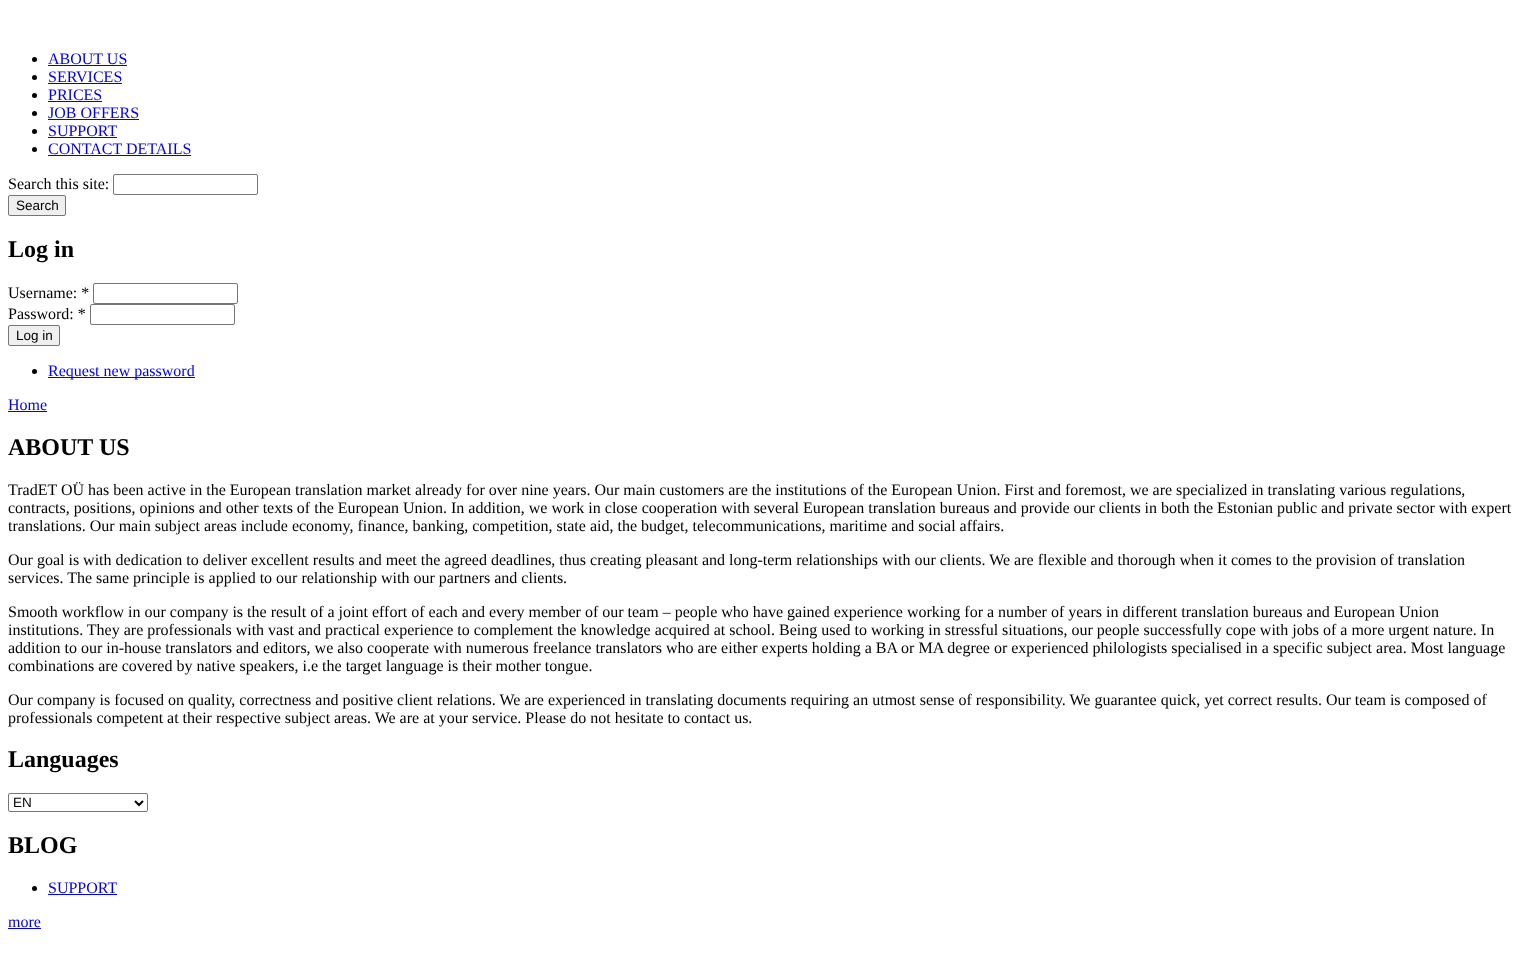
<!DOCTYPE html>
<meta charset="utf-8">
<style>body { margin: 0 } canvas { display: block }</style>
<canvas id="canvas" width="1524" height="954"></canvas>
<script>
window.onload = function () {
	const canvas = document.getElementById("canvas");
	const ctx = canvas.getContext("2d");
	ctx.miterLimit = 4;
	ctx.fontKerning = "normal";
	function txt(s, x, y) {
		ctx.fillText(s, x, y);
	}
	function fill(x, y, w, h) {
		ctx.fillRect(x, y, w, h);
	}

	ctx.fillStyle = "#FFFFFF";
	fill(0, 0, 1524, 954);
	ctx.fillStyle = "#000000";
	ctx.beginPath();
	ctx.arc(34.5, 59.5, 2.5, 0, Math.PI * 2);
	ctx.fill();
	ctx.fillStyle = "#0000EE";
	fill(48, 65, 79, 1);
	ctx.fillStyle = "#000000";
	ctx.beginPath();
	ctx.arc(34.5, 77.5, 2.5, 0, Math.PI * 2);
	ctx.fill();
	ctx.fillStyle = "#0000EE";
	fill(48, 83, 74, 1);
	ctx.fillStyle = "#000000";
	ctx.beginPath();
	ctx.arc(34.5, 95.5, 2.5, 0, Math.PI * 2);
	ctx.fill();
	ctx.fillStyle = "#0000EE";
	fill(48, 101, 54, 1);
	ctx.fillStyle = "#000000";
	ctx.beginPath();
	ctx.arc(34.5, 113.5, 2.5, 0, Math.PI * 2);
	ctx.fill();
	ctx.fillStyle = "#0000EE";
	fill(48, 119, 91, 1);
	ctx.fillStyle = "#000000";
	ctx.beginPath();
	ctx.arc(34.5, 131.5, 2.5, 0, Math.PI * 2);
	ctx.fill();
	ctx.fillStyle = "#0000EE";
	fill(48, 137, 69, 1);
	ctx.fillStyle = "#000000";
	ctx.beginPath();
	ctx.arc(34.5, 149.5, 2.5, 0, Math.PI * 2);
	ctx.fill();
	ctx.fillStyle = "#0000EE";
	fill(48, 155, 143, 1);
	ctx.beginPath();
	ctx.roundRect(113.5, 174.5, 144, 20, 1.5);
	ctx.strokeStyle = "#767676";
	ctx.stroke();
	ctx.fillStyle = "#EFEFEF";
	ctx.beginPath();
	ctx.roundRect(8.5, 195.5, 57, 20, 1.5);
	ctx.fill();
	ctx.stroke();
	ctx.beginPath();
	ctx.roundRect(93.5, 283.5, 144, 20, 1.5);
	ctx.stroke();
	ctx.beginPath();
	ctx.roundRect(90.5, 304.5, 144, 20, 1.5);
	ctx.stroke();
	ctx.beginPath();
	ctx.roundRect(8.5, 325.5, 51, 20, 1.5);
	ctx.fill();
	ctx.stroke();
	ctx.fillStyle = "#000000";
	ctx.beginPath();
	ctx.arc(34.5, 371.5, 2.5, 0, Math.PI * 2);
	ctx.fill();
	ctx.fillStyle = "#0000EE";
	fill(48, 377, 147, 1);
	fill(8, 411, 39, 1);
	ctx.beginPath();
	ctx.roundRect(8.5, 793.5, 139, 18, 1.5);
	ctx.stroke();
	ctx.beginPath();
	ctx.moveTo(135, 801);
	ctx.lineTo(139, 805);
	ctx.lineTo(143, 801);
	ctx.strokeStyle = "#000000";
	ctx.lineWidth = 2;
	ctx.stroke();
	ctx.fillStyle = "#000000";
	ctx.beginPath();
	ctx.arc(34.5, 888.5, 2.5, 0, Math.PI * 2);
	ctx.fill();
	ctx.fillStyle = "#0000EE";
	fill(48, 894, 69, 1);
	fill(8, 928, 33, 1);
	ctx.font = "16px Liberation Serif";
	txt("ABOUT US", 48, 64);
	txt("SERVICES", 48, 82);
	txt("PRICES", 48, 100);
	txt("JOB OFFERS", 48, 118);
	txt("SUPPORT", 48, 136);
	txt("CONTACT DETAILS", 48, 154);
	ctx.fillStyle = "#000000";
	txt("Search this site:", 8, 189);
	ctx.font = "13.5px Liberation Sans";
	txt("Search", 16, 210);
	ctx.font = "bold 24px Liberation Serif";
	txt("Log in", 8, 257);
	ctx.font = "16px Liberation Serif";
	txt("Username: *", 8, 298);
	txt("Password: *", 8, 319);
	ctx.font = "13.5px Liberation Sans";
	txt("Log in", 16, 340);
	ctx.font = "16px Liberation Serif";
	ctx.fillStyle = "#0000EE";
	txt("Request new password", 48, 376);
	txt("Home", 8, 410);
	ctx.font = "bold 24px Liberation Serif";
	ctx.fillStyle = "#000000";
	txt("ABOUT US", 8, 455);
	ctx.font = "16px Liberation Serif";
	txt("TradET OÜ has been active in the European translation market already for over nine years. Our main customers are the institutions of the European Union. First and foremost, we are specialized in translating various regulations,", 8, 495);
	txt("contracts, positions, opinions and other texts of the European Union. In addition, we work in close cooperation with several European translation bureaus and provide our clients in both the Estonian public and private sector with expert", 8, 513);
	txt("translations. Our main subject areas include economy, finance, banking, competition, state aid, the budget, telecommunications, maritime and social affairs.", 8, 531);
	txt("Our goal is with dedication to deliver excellent results and meet the agreed deadlines, thus creating pleasant and long-term relationships with our clients. We are flexible and thorough when it comes to the provision of translation", 8, 565);
	txt("services. The same principle is applied to our relationship with our partners and clients.", 8, 583);
	txt("Smooth workflow in our company is the result of a joint effort of each and every member of our team – people who have gained experience working for a number of years in different translation bureaus and European Union", 8, 617);
	txt("institutions. They are professionals with vast and practical experience to complement the knowledge acquired at school. Being used to working in stressful situations, our people successfully cope with jobs of a more urgent nature. In", 8, 635);
	txt("addition to our in-house translators and editors, we also cooperate with numerous freelance translators who are either experts holding a BA or MA degree or experienced philologists specialised in a specific subject area. Most language", 8, 653);
	txt("combinations are covered by native speakers, i.e the target language is their mother tongue.", 8, 671);
	txt("Our company is focused on quality, correctness and positive client relations. We are experienced in translating documents requiring an utmost sense of responsibility. We guarantee quick, yet correct results. Our team is composed of", 8, 705);
	txt("professionals competent at their respective subject areas. We are at your service. Please do not hesitate to contact us.", 8, 723);
	ctx.font = "bold 24px Liberation Serif";
	txt("Languages", 8, 767);
	ctx.font = "13.5px Liberation Sans";
	txt("EN", 13, 807);
	ctx.font = "bold 24px Liberation Serif";
	txt("BLOG", 8, 853);
	ctx.font = "16px Liberation Serif";
	ctx.fillStyle = "#0000EE";
	txt("SUPPORT", 48, 893);
	txt("more", 8, 927);
};
</script>
